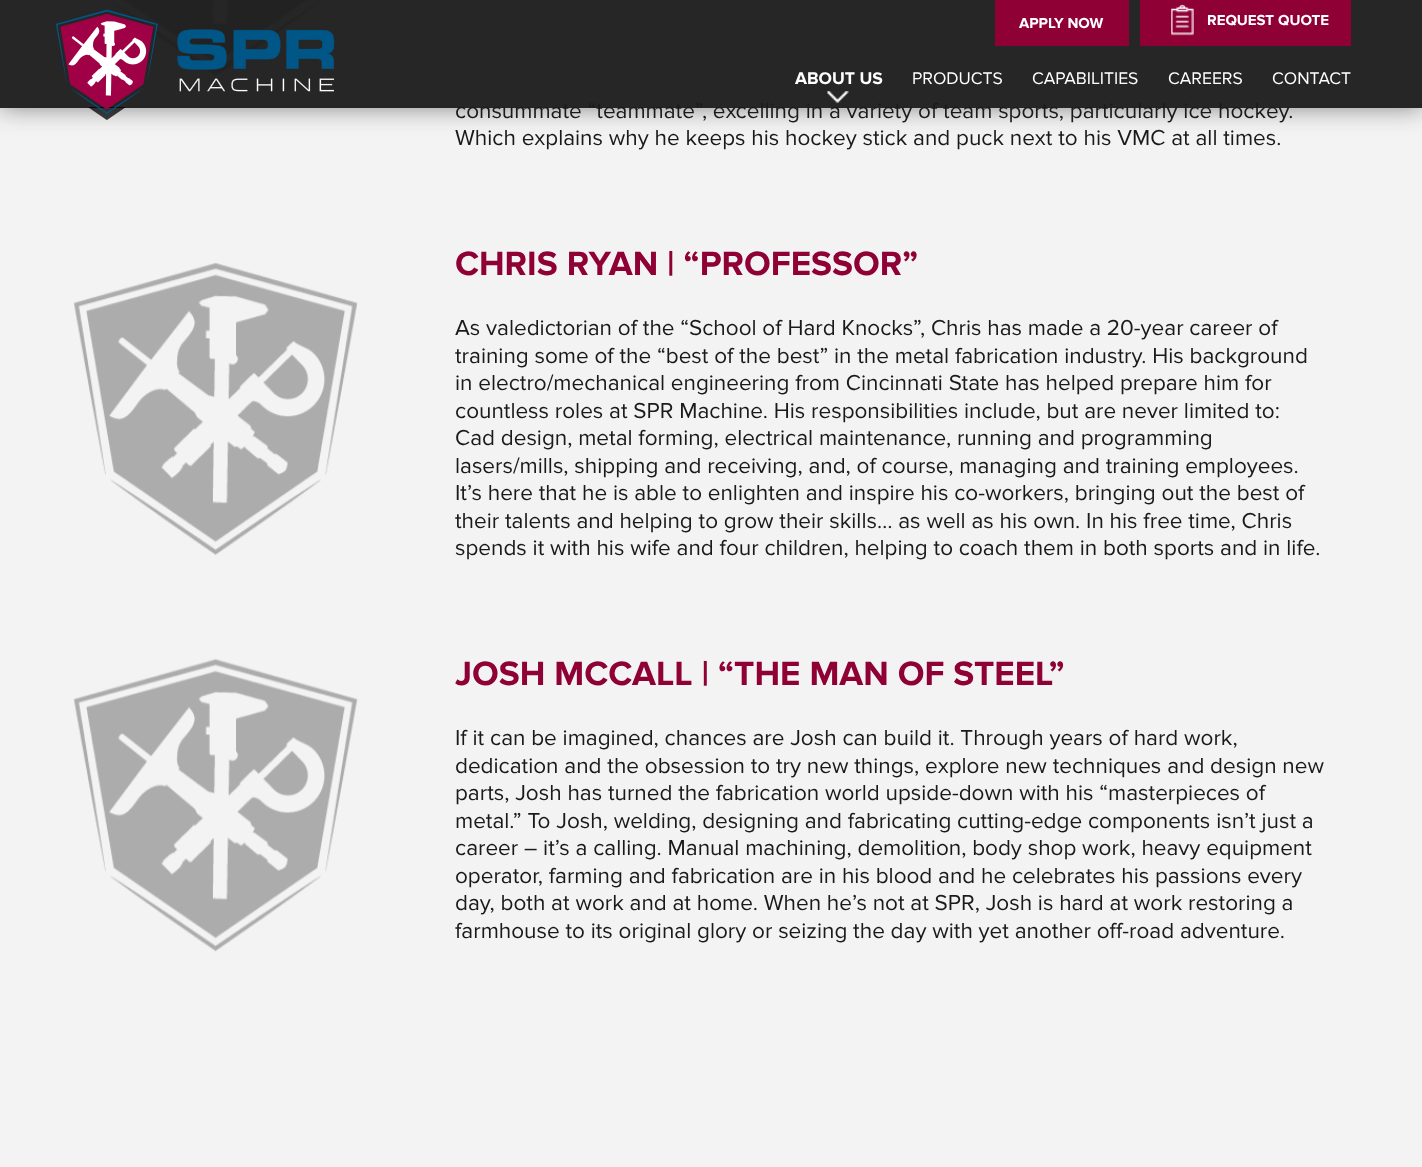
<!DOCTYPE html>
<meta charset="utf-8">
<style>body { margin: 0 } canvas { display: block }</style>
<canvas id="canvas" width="1422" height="1167"></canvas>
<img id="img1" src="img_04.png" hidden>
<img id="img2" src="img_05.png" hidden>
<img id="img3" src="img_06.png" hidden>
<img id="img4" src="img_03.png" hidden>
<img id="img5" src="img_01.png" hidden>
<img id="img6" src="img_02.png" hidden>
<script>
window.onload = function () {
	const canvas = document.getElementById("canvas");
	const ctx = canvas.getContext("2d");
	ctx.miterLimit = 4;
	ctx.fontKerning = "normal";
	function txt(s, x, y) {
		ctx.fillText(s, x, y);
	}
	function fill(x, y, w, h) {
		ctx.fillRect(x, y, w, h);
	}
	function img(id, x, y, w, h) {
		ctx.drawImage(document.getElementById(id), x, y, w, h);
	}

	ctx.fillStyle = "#F3F3F3";
	fill(0, 0, 1422, 1167);
	img("img1", 110, 0, 211, 77);
	ctx.save();
	ctx.beginPath();
	ctx.moveTo(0, 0);
	ctx.lineTo(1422, 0);
	ctx.lineTo(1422, 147);
	ctx.lineTo(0, 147);
	ctx.closePath();
	ctx.moveTo(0, 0);
	ctx.lineTo(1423, 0);
	ctx.lineTo(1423, 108);
	ctx.lineTo(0, 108);
	ctx.closePath();
	ctx.clip("evenodd");
	ctx.fillStyle = "rgba(26, 26, 26, 0.5)";
	ctx.filter = "blur(12.5px)";
	ctx.beginPath();
	ctx.rect(0, 0, 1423, 108);
	ctx.fill();
	ctx.filter = "none";
	ctx.restore();
	img("img2", 73, 262, 285, 294);
	img("img3", 73, 659, 285, 293);
	ctx.font = "22.5px Proxima Nova";
	ctx.fillStyle = "#1A1A1A";
	txt("consummate “teammate”, excelling in a variety of team sports, particularly ice hockey.", 455, 118);
	ctx.fillStyle = "rgba(26, 26, 26, 0.95)";
	fill(0, 0, 1422, 108);
	ctx.font = "17.5px Proxima Nova";
	ctx.fillStyle = "#FFFFFF";
	txt("CONTACT", 1272, 84);
	txt("CAREERS", 1168, 84);
	txt("CAPABILITIES", 1032, 84);
	txt("PRODUCTS", 912, 84);
	img("img4", 827, 91, 22, 13);
	ctx.font = "bold 17.5px Proxima Nova";
	txt("ABOUT US", 795, 84);
	img("img5", 55, 9, 280, 111);
	ctx.fillStyle = "#8F0035";
	fill(1140, 0, 211, 46);
	img("img6", 1171, 4, 23, 32);
	ctx.font = "bold 15px Proxima Nova";
	ctx.fillStyle = "#FFFFFF";
	txt("REQUEST QUOTE", 1207, 25);
	ctx.fillStyle = "#8F0035";
	fill(995, 0, 134, 46);
	ctx.fillStyle = "#FFFFFF";
	txt("APPLY NOW", 1019, 28);
	ctx.font = "22.5px Proxima Nova";
	ctx.fillStyle = "#1A1A1A";
	txt("Which explains why he keeps his hockey stick and puck next to his VMC at all times.", 455, 145);
	ctx.font = "bold 35px Proxima Nova";
	ctx.fillStyle = "#8F0035";
	txt("CHRIS RYAN | “PROFESSOR”", 455, 275);
	ctx.font = "22.5px Proxima Nova";
	ctx.fillStyle = "#1A1A1A";
	txt("As valedictorian of the “School of Hard Knocks”, Chris has made a 20-year career of", 455, 335);
	txt("training some of the “best of the best” in the metal fabrication industry. His background", 455, 363);
	txt("in electro/mechanical engineering from Cincinnati State has helped prepare him for", 455, 390);
	txt("countless roles at SPR Machine. His responsibilities include, but are never limited to:", 455, 418);
	txt("Cad design, metal forming, electrical maintenance, running and programming", 455, 445);
	txt("lasers/mills, shipping and receiving, and, of course, managing and training employees.", 455, 473);
	txt("It’s here that he is able to enlighten and inspire his co-workers, bringing out the best of", 455, 500);
	txt("their talents and helping to grow their skills… as well as his own. In his free time, Chris", 455, 528);
	txt("spends it with his wife and four children, helping to coach them in both sports and in life.", 455, 555);
	ctx.font = "bold 35px Proxima Nova";
	ctx.fillStyle = "#8F0035";
	txt("JOSH MCCALL | “THE MAN OF STEEL”", 455, 685);
	ctx.font = "22.5px Proxima Nova";
	ctx.fillStyle = "#1A1A1A";
	txt("If it can be imagined, chances are Josh can build it. Through years of hard work,", 455, 745);
	txt("dedication and the obsession to try new things, explore new techniques and design new", 455, 773);
	txt("parts, Josh has turned the fabrication world upside-down with his “masterpieces of", 455, 800);
	txt("metal.” To Josh, welding, designing and fabricating cutting-edge components isn’t just a", 455, 828);
	txt("career – it’s a calling. Manual machining, demolition, body shop work, heavy equipment", 455, 855);
	txt("operator, farming and fabrication are in his blood and he celebrates his passions every", 455, 883);
	txt("day, both at work and at home. When he’s not at SPR, Josh is hard at work restoring a", 455, 910);
	txt("farmhouse to its original glory or seizing the day with yet another off-road adventure.", 455, 938);
};
</script>
